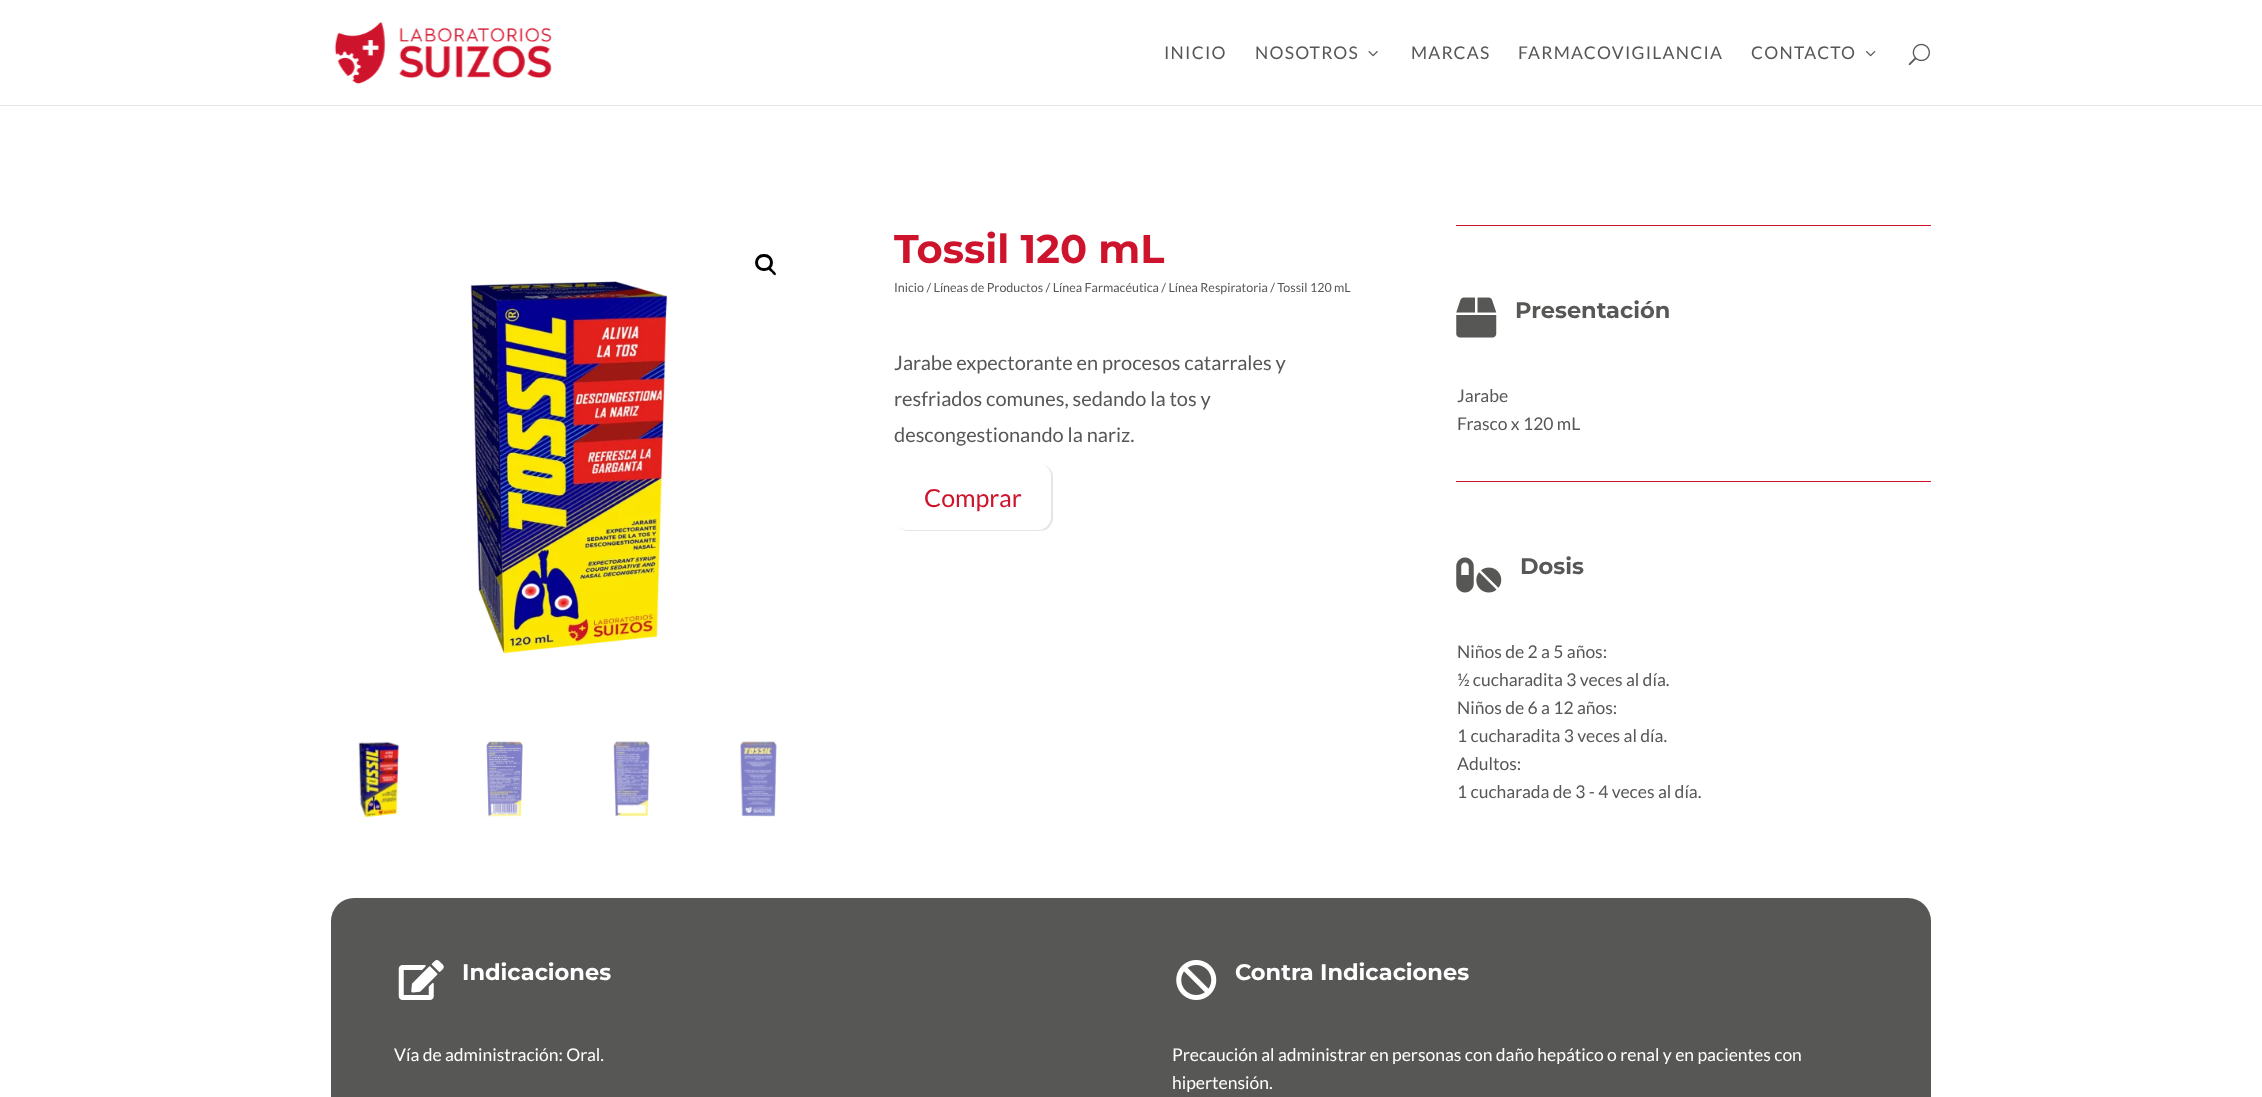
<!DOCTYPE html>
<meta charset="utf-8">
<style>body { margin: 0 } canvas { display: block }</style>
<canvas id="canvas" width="2262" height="1097"></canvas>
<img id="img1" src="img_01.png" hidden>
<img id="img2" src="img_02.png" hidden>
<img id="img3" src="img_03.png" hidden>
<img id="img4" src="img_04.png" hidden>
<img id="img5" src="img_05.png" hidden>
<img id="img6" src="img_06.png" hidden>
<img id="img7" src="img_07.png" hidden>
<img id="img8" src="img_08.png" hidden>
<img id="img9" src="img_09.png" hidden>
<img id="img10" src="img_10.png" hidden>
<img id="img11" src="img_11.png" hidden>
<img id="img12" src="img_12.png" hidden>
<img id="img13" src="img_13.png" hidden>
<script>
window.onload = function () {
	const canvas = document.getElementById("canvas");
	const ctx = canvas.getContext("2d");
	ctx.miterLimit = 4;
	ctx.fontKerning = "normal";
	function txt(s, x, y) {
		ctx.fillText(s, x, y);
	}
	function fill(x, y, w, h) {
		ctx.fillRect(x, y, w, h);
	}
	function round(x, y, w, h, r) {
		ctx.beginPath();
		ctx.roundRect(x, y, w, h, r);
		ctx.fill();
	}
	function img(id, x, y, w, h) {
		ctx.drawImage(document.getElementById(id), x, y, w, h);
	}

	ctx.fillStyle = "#FFFFFF";
	fill(0, 0, 2262, 1097);
	ctx.fillStyle = "#E6E6E6";
	ctx.beginPath();
	ctx.moveTo(0, 105);
	ctx.lineTo(0, 106);
	ctx.lineTo(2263, 106);
	ctx.lineTo(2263, 1);
	ctx.lineTo(2262, 1);
	ctx.lineTo(2262, 105);
	ctx.closePath();
	ctx.fill();
	img("img1", 334, 22, 218, 62);
	img("img2", 1368, 51, 10, 6);
	img("img3", 1866, 51, 10, 6);
	img("img4", 1908, 43, 22, 23);
	ctx.beginPath();
	ctx.roundRect(756.5, 255.5, 15, 14, 7);
	ctx.strokeStyle = "#000000";
	ctx.lineWidth = 3;
	ctx.stroke();
	ctx.fillStyle = "#000000";
	ctx.beginPath();
	ctx.moveTo(768.5, 267.5);
	ctx.bezierCurveTo(770, 266.5, 772.5, 269.5, 773, 270.5);
	ctx.bezierCurveTo(774, 271, 777, 273.5, 775.5, 275);
	ctx.bezierCurveTo(774.5, 276, 772, 273, 771.5, 272);
	ctx.bezierCurveTo(770.5, 271.5, 767, 269, 768.5, 267.5);
	ctx.closePath();
	ctx.fill();
	img("img5", 470, 281, 198, 373);
	img("img6", 358, 741, 41, 77);
	img("img7", 486, 741, 37, 76);
	img("img8", 613, 741, 37, 76);
	img("img9", 740, 741, 37, 76);
	ctx.save();
	ctx.beginPath();
	ctx.moveTo(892, 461);
	ctx.lineTo(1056, 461);
	ctx.lineTo(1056, 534);
	ctx.lineTo(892, 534);
	ctx.closePath();
	ctx.moveTo(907, 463);
	ctx.lineTo(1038, 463);
	ctx.bezierCurveTo(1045, 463, 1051, 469, 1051, 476);
	ctx.lineTo(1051, 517);
	ctx.bezierCurveTo(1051, 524, 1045, 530, 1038, 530);
	ctx.lineTo(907, 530);
	ctx.bezierCurveTo(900, 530, 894, 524, 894, 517);
	ctx.lineTo(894, 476);
	ctx.bezierCurveTo(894, 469, 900, 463, 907, 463);
	ctx.closePath();
	ctx.clip("evenodd");
	ctx.fillStyle = "rgba(0, 0, 0, 0.1)";
	ctx.filter = "blur(0.5px)";
	ctx.beginPath();
	ctx.roundRect(895, 464, 158, 67, 13);
	ctx.fill();
	ctx.filter = "none";
	ctx.restore();
	ctx.fillStyle = "#CE142D";
	fill(1456, 225, 475, 1);
	img("img10", 1456, 297, 41, 41);
	fill(1456, 481, 475, 1);
	img("img11", 1456, 557, 46, 36);
	ctx.fillStyle = "#575756";
	round(331, 898, 1600, 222, 23);
	img("img12", 398, 960, 46, 40);
	img("img13", 1176, 960, 41, 40);
	ctx.letterSpacing = "1.25px";
	ctx.font = "17.5px Lato";
	txt("INICIO", 1164, 59);
	txt("NOSOTROS", 1255, 59);
	txt("MARCAS", 1411, 59);
	txt("FARMACOVIGILANCIA", 1518, 59);
	txt("CONTACTO", 1751, 59);
	ctx.letterSpacing = "0px";
	ctx.font = "bold 40px Montserrat";
	ctx.fillStyle = "#CE142D";
	txt("Tossil 120 mL", 894, 263);
	ctx.font = "12.5px Lato";
	ctx.fillStyle = "#575756";
	txt("Inicio / Líneas de Productos / Línea Farmacéutica / Línea Respiratoria / Tossil 120 mL", 894, 292);
	ctx.font = "20px Lato";
	txt("Jarabe expectorante en procesos catarrales y", 894, 370);
	txt("resfriados comunes, sedando la tos y", 894, 406);
	txt("descongestionando la nariz.", 894, 442);
	ctx.font = "25px Lato";
	ctx.fillStyle = "#CE142D";
	txt("Comprar", 924, 507);
	ctx.font = "bold 22.5px Montserrat";
	ctx.fillStyle = "#575756";
	txt("Presentación", 1515, 318);
	ctx.font = "17.5px Lato";
	txt("Jarabe", 1457, 402);
	txt("Frasco x 120 mL", 1457, 430);
	ctx.font = "bold 22.5px Montserrat";
	txt("Dosis", 1520, 574);
	ctx.font = "17.5px Lato";
	txt("Niños de 2 a 5 años:", 1457, 658);
	txt("½ cucharadita 3 veces al día.", 1457, 686);
	txt("Niños de 6 a 12 años:", 1457, 714);
	txt("1 cucharadita 3 veces al día.", 1457, 742);
	txt("Adultos:", 1457, 770);
	txt("1 cucharada de 3 - 4 veces al día.", 1457, 798);
	ctx.font = "bold 22.5px Montserrat";
	ctx.fillStyle = "#FFFFFF";
	txt("Indicaciones", 462, 980);
	ctx.font = "17.5px Lato";
	txt("Vía de administración: Oral.", 394, 1061);
	ctx.font = "bold 22.5px Montserrat";
	txt("Contra Indicaciones", 1235, 980);
	ctx.font = "17.5px Lato";
	txt("Precaución al administrar en personas con daño hepático o renal y en pacientes con", 1172, 1061);
	txt("hipertensión.", 1172, 1089);
};
</script>
